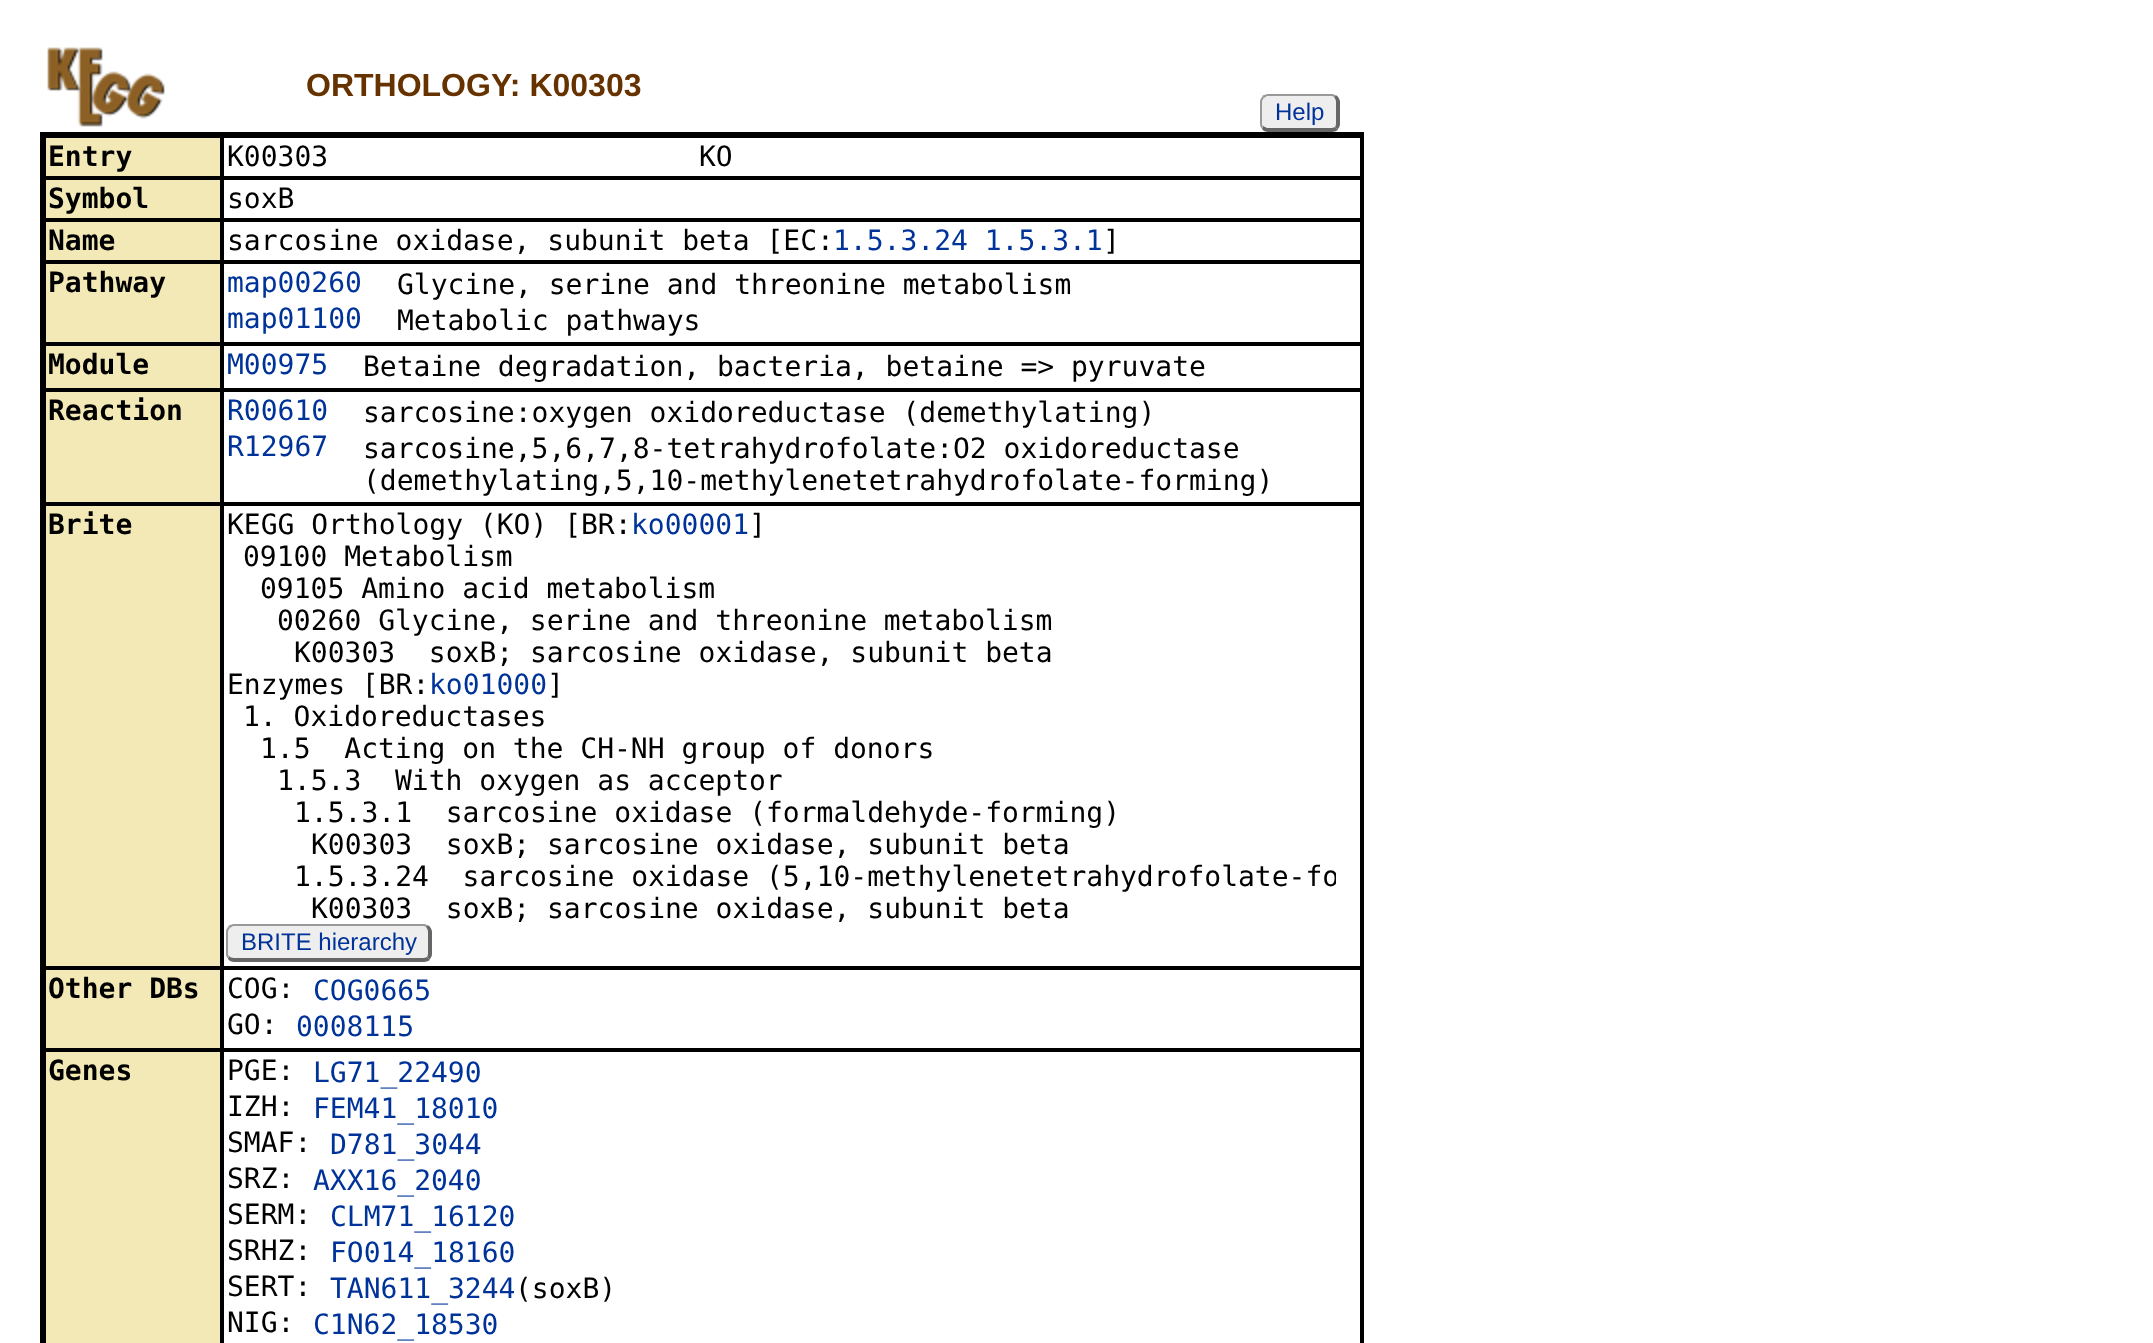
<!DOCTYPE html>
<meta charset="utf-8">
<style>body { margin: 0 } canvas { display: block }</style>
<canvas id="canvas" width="2153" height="1343"></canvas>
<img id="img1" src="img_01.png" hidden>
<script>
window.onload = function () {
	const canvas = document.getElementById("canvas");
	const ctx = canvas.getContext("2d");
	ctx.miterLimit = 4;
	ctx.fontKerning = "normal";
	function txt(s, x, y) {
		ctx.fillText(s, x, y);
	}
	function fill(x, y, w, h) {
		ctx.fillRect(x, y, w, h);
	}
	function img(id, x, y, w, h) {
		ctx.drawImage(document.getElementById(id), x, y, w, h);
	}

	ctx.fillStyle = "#FFFFFF";
	fill(0, 0, 2153, 1343);
	img("img1", 47, 47, 118, 80);
	ctx.fillStyle = "#EEEEEE";
	ctx.beginPath();
	ctx.moveTo(1268, 96);
	ctx.lineTo(1332, 96);
	ctx.bezierCurveTo(1334, 96, 1336, 99, 1336, 102);
	ctx.lineTo(1336, 124);
	ctx.bezierCurveTo(1336, 126, 1334, 128, 1332, 128);
	ctx.lineTo(1268, 128);
	ctx.bezierCurveTo(1265, 128, 1262, 126, 1262, 124);
	ctx.lineTo(1262, 102);
	ctx.bezierCurveTo(1262, 99, 1265, 96, 1268, 96);
	ctx.closePath();
	ctx.fill();
	ctx.fillStyle = "#999999";
	ctx.beginPath();
	ctx.moveTo(1268, 94);
	ctx.bezierCurveTo(1266, 94, 1264, 95, 1262, 96);
	ctx.lineTo(1264, 98);
	ctx.lineTo(1267, 96);
	ctx.lineTo(1332, 96);
	ctx.lineTo(1334, 97);
	ctx.lineTo(1337, 96);
	ctx.bezierCurveTo(1335, 95, 1334, 94, 1332, 94);
	ctx.closePath();
	ctx.fill();
	ctx.fillStyle = "#666666";
	ctx.beginPath();
	ctx.moveTo(1340, 124);
	ctx.lineTo(1340, 102);
	ctx.bezierCurveTo(1340, 99.5, 1338.5, 97, 1336.5, 95.5);
	ctx.lineTo(1334, 97);
	ctx.bezierCurveTo(1335, 98, 1336, 100, 1336, 102);
	ctx.lineTo(1336, 124);
	ctx.bezierCurveTo(1336, 125, 1335.5, 126, 1335, 127);
	ctx.lineTo(1337.5, 129.5);
	ctx.bezierCurveTo(1339, 128, 1340, 126, 1340, 124);
	ctx.closePath();
	ctx.fill();
	ctx.beginPath();
	ctx.moveTo(1268, 132);
	ctx.lineTo(1332, 132);
	ctx.bezierCurveTo(1334, 132, 1336, 131, 1338, 130);
	ctx.lineTo(1335, 127);
	ctx.lineTo(1332, 128);
	ctx.lineTo(1267, 128);
	ctx.lineTo(1263, 126);
	ctx.lineTo(1262, 129);
	ctx.bezierCurveTo(1263, 131, 1266, 132, 1268, 132);
	ctx.closePath();
	ctx.fill();
	ctx.fillStyle = "#999999";
	ctx.beginPath();
	ctx.moveTo(1260, 102);
	ctx.lineTo(1260, 124);
	ctx.bezierCurveTo(1260, 125.5, 1260.5, 127, 1261.5, 128.5);
	ctx.lineTo(1263, 126);
	ctx.bezierCurveTo(1262.5, 125.5, 1262, 124.5, 1262, 124);
	ctx.lineTo(1262, 102);
	ctx.bezierCurveTo(1262, 100.5, 1263, 99, 1264, 98);
	ctx.lineTo(1262.5, 96.5);
	ctx.bezierCurveTo(1261, 98, 1260, 100, 1260, 102);
	ctx.closePath();
	ctx.fill();
	ctx.fillStyle = "#000000";
	fill(40, 132, 1324, 1211);
	ctx.fillStyle = "#F2E9B6";
	fill(46, 138, 174, 38);
	ctx.fillStyle = "#FFFFFF";
	fill(224, 138, 1136, 38);
	ctx.fillStyle = "#F2E9B6";
	fill(46, 180, 174, 38);
	ctx.fillStyle = "#FFFFFF";
	fill(224, 180, 1136, 38);
	ctx.fillStyle = "#F2E9B6";
	fill(46, 222, 174, 38);
	ctx.fillStyle = "#FFFFFF";
	fill(224, 222, 1136, 38);
	ctx.fillStyle = "#F2E9B6";
	fill(46, 264, 174, 78);
	ctx.fillStyle = "#FFFFFF";
	fill(224, 264, 1136, 78);
	ctx.fillStyle = "#F2E9B6";
	fill(46, 346, 174, 42);
	ctx.fillStyle = "#FFFFFF";
	fill(224, 346, 1136, 42);
	ctx.fillStyle = "#F2E9B6";
	fill(46, 392, 174, 110);
	ctx.fillStyle = "#FFFFFF";
	fill(224, 392, 1136, 110);
	ctx.fillStyle = "#F2E9B6";
	fill(46, 506, 174, 460);
	ctx.fillStyle = "#FFFFFF";
	fill(224, 506, 1136, 460);
	ctx.fillStyle = "#EEEEEE";
	ctx.beginPath();
	ctx.moveTo(234, 926);
	ctx.lineTo(424, 926);
	ctx.bezierCurveTo(426, 926, 428, 929, 428, 932);
	ctx.lineTo(428, 954);
	ctx.bezierCurveTo(428, 956, 426, 958, 424, 958);
	ctx.lineTo(234, 958);
	ctx.bezierCurveTo(231, 958, 228, 956, 228, 954);
	ctx.lineTo(228, 932);
	ctx.bezierCurveTo(228, 929, 231, 926, 234, 926);
	ctx.closePath();
	ctx.fill();
	ctx.fillStyle = "#999999";
	ctx.beginPath();
	ctx.moveTo(234, 924);
	ctx.bezierCurveTo(232, 924, 230, 925, 228, 926);
	ctx.lineTo(230, 928);
	ctx.lineTo(233, 926);
	ctx.lineTo(424, 926);
	ctx.lineTo(426, 927);
	ctx.lineTo(429, 926);
	ctx.bezierCurveTo(427, 925, 426, 924, 424, 924);
	ctx.closePath();
	ctx.fill();
	ctx.fillStyle = "#666666";
	ctx.beginPath();
	ctx.moveTo(432, 954);
	ctx.lineTo(432, 932);
	ctx.bezierCurveTo(432, 929.5, 430.5, 927, 428.5, 925.5);
	ctx.lineTo(426, 927);
	ctx.bezierCurveTo(427, 928, 428, 930, 428, 932);
	ctx.lineTo(428, 954);
	ctx.bezierCurveTo(428, 955, 427.5, 956, 427, 957);
	ctx.lineTo(429.5, 959.5);
	ctx.bezierCurveTo(431, 958, 432, 956, 432, 954);
	ctx.closePath();
	ctx.fill();
	ctx.beginPath();
	ctx.moveTo(234, 962);
	ctx.lineTo(424, 962);
	ctx.bezierCurveTo(426, 962, 428, 961, 430, 960);
	ctx.lineTo(427, 957);
	ctx.lineTo(424, 958);
	ctx.lineTo(234, 958);
	ctx.bezierCurveTo(232, 958, 230, 957, 229, 956);
	ctx.lineTo(228, 959);
	ctx.bezierCurveTo(229, 961, 232, 962, 234, 962);
	ctx.closePath();
	ctx.fill();
	ctx.fillStyle = "#999999";
	ctx.beginPath();
	ctx.moveTo(226, 932);
	ctx.lineTo(226, 954);
	ctx.bezierCurveTo(226, 955.5, 226.5, 957, 227.5, 958.5);
	ctx.lineTo(229, 956);
	ctx.bezierCurveTo(228.5, 955.5, 228, 954.5, 228, 954);
	ctx.lineTo(228, 932);
	ctx.bezierCurveTo(228, 930.5, 229, 929, 230, 928);
	ctx.lineTo(228.5, 926.5);
	ctx.bezierCurveTo(227, 928, 226, 930, 226, 932);
	ctx.closePath();
	ctx.fill();
	ctx.fillStyle = "#F2E9B6";
	fill(46, 970, 174, 78);
	ctx.fillStyle = "#FFFFFF";
	fill(224, 970, 1136, 78);
	ctx.fillStyle = "#F2E9B6";
	fill(46, 1052, 174, 291);
	ctx.fillStyle = "#FFFFFF";
	fill(224, 1052, 1136, 291);
	ctx.font = "bold 32px Liberation Sans";
	ctx.fillStyle = "#663300";
	txt("ORTHOLOGY: K00303", 306, 96);
	ctx.font = "24px Liberation Sans";
	ctx.fillStyle = "#003399";
	txt("Help", 1275, 120);
	ctx.font = "bold 28px DejaVu Sans Mono";
	ctx.fillStyle = "#000000";
	txt("Entry", 48, 166);
	ctx.font = "28px DejaVu Sans Mono";
	txt("K00303                      KO", 227, 166);
	ctx.font = "bold 28px DejaVu Sans Mono";
	txt("Symbol", 48, 208);
	ctx.font = "28px DejaVu Sans Mono";
	txt("soxB", 227, 208);
	ctx.font = "bold 28px DejaVu Sans Mono";
	txt("Name", 48, 250);
	ctx.font = "28px DejaVu Sans Mono";
	txt("sarcosine oxidase, subunit beta [EC:", 227, 250);
	ctx.fillStyle = "#003399";
	txt("1.5.3.24 1.5.3.1", 833, 250);
	ctx.fillStyle = "#000000";
	txt("]", 1103, 250);
	ctx.font = "bold 28px DejaVu Sans Mono";
	txt("Pathway", 48, 292);
	ctx.font = "28px DejaVu Sans Mono";
	ctx.fillStyle = "#003399";
	txt("map00260", 227, 292);
	ctx.fillStyle = "#000000";
	txt("Glycine, serine and threonine metabolism", 397, 294);
	ctx.fillStyle = "#003399";
	txt("map01100", 227, 328);
	ctx.fillStyle = "#000000";
	txt("Metabolic pathways", 397, 330);
	ctx.font = "bold 28px DejaVu Sans Mono";
	txt("Module", 48, 374);
	ctx.font = "28px DejaVu Sans Mono";
	ctx.fillStyle = "#003399";
	txt("M00975", 227, 374);
	ctx.fillStyle = "#000000";
	txt("Betaine degradation, bacteria, betaine => pyruvate", 363, 376);
	ctx.font = "bold 28px DejaVu Sans Mono";
	txt("Reaction", 48, 420);
	ctx.font = "28px DejaVu Sans Mono";
	ctx.fillStyle = "#003399";
	txt("R00610", 227, 420);
	ctx.fillStyle = "#000000";
	txt("sarcosine:oxygen oxidoreductase (demethylating)", 363, 422);
	ctx.fillStyle = "#003399";
	txt("R12967", 227, 456);
	ctx.fillStyle = "#000000";
	txt("sarcosine,5,6,7,8-tetrahydrofolate:O2 oxidoreductase", 363, 458);
	txt("(demethylating,5,10-methylenetetrahydrofolate-forming)", 363, 490);
	ctx.font = "bold 28px DejaVu Sans Mono";
	txt("Brite", 48, 534);
	ctx.font = "28px DejaVu Sans Mono";
	txt("KEGG Orthology (KO) [BR:", 227, 534);
	ctx.fillStyle = "#003399";
	txt("ko00001", 631, 534);
	ctx.fillStyle = "#000000";
	txt("]", 749, 534);
	txt("09100 Metabolism", 243, 566);
	txt("09105 Amino acid metabolism", 260, 598);
	txt("00260 Glycine, serine and threonine metabolism", 277, 630);
	txt("K00303  soxB; sarcosine oxidase, subunit beta", 294, 662);
	txt("Enzymes [BR:", 227, 694);
	ctx.fillStyle = "#003399";
	txt("ko01000", 429, 694);
	ctx.fillStyle = "#000000";
	txt("]", 547, 694);
	txt("1. Oxidoreductases", 243, 726);
	txt("1.5  Acting on the CH-NH group of donors", 260, 758);
	txt("1.5.3  With oxygen as acceptor", 277, 790);
	txt("1.5.3.1  sarcosine oxidase (formaldehyde-forming)", 294, 822);
	txt("K00303  soxB; sarcosine oxidase, subunit beta", 311, 854);
	ctx.save();
	ctx.beginPath();
	ctx.rect(226, 508, 1110, 416);
	ctx.clip();
	txt("1.5.3.24  sarcosine oxidase (5,10-methylenetetrahydrofolate-fo", 294, 886);
	ctx.restore();
	txt("K00303  soxB; sarcosine oxidase, subunit beta", 311, 918);
	ctx.font = "24px Liberation Sans";
	ctx.fillStyle = "#003399";
	txt("BRITE hierarchy", 241, 950);
	ctx.font = "bold 28px DejaVu Sans Mono";
	ctx.fillStyle = "#000000";
	txt("Other DBs", 48, 998);
	ctx.font = "28px DejaVu Sans Mono";
	txt("COG:", 227, 998);
	ctx.fillStyle = "#003399";
	txt("COG0665", 313, 1000);
	ctx.fillStyle = "#000000";
	txt("GO:", 227, 1034);
	ctx.fillStyle = "#003399";
	txt("0008115", 296, 1036);
	ctx.font = "bold 28px DejaVu Sans Mono";
	ctx.fillStyle = "#000000";
	txt("Genes", 48, 1080);
	ctx.font = "28px DejaVu Sans Mono";
	txt("PGE:", 227, 1080);
	ctx.fillStyle = "#003399";
	txt("LG71_22490", 313, 1082);
	ctx.fillStyle = "#000000";
	txt("IZH:", 227, 1116);
	ctx.fillStyle = "#003399";
	txt("FEM41_18010", 313, 1118);
	ctx.fillStyle = "#000000";
	txt("SMAF:", 227, 1152);
	ctx.fillStyle = "#003399";
	txt("D781_3044", 330, 1154);
	ctx.fillStyle = "#000000";
	txt("SRZ:", 227, 1188);
	ctx.fillStyle = "#003399";
	txt("AXX16_2040", 313, 1190);
	ctx.fillStyle = "#000000";
	txt("SERM:", 227, 1224);
	ctx.fillStyle = "#003399";
	txt("CLM71_16120", 330, 1226);
	ctx.fillStyle = "#000000";
	txt("SRHZ:", 227, 1260);
	ctx.fillStyle = "#003399";
	txt("FO014_18160", 330, 1262);
	ctx.fillStyle = "#000000";
	txt("SERT:", 227, 1296);
	ctx.fillStyle = "#003399";
	txt("TAN611_3244", 330, 1298);
	ctx.fillStyle = "#000000";
	txt("(soxB)", 515, 1298);
	txt("NIG:", 227, 1332);
	ctx.fillStyle = "#003399";
	txt("C1N62_18530", 313, 1334);
};
</script>
